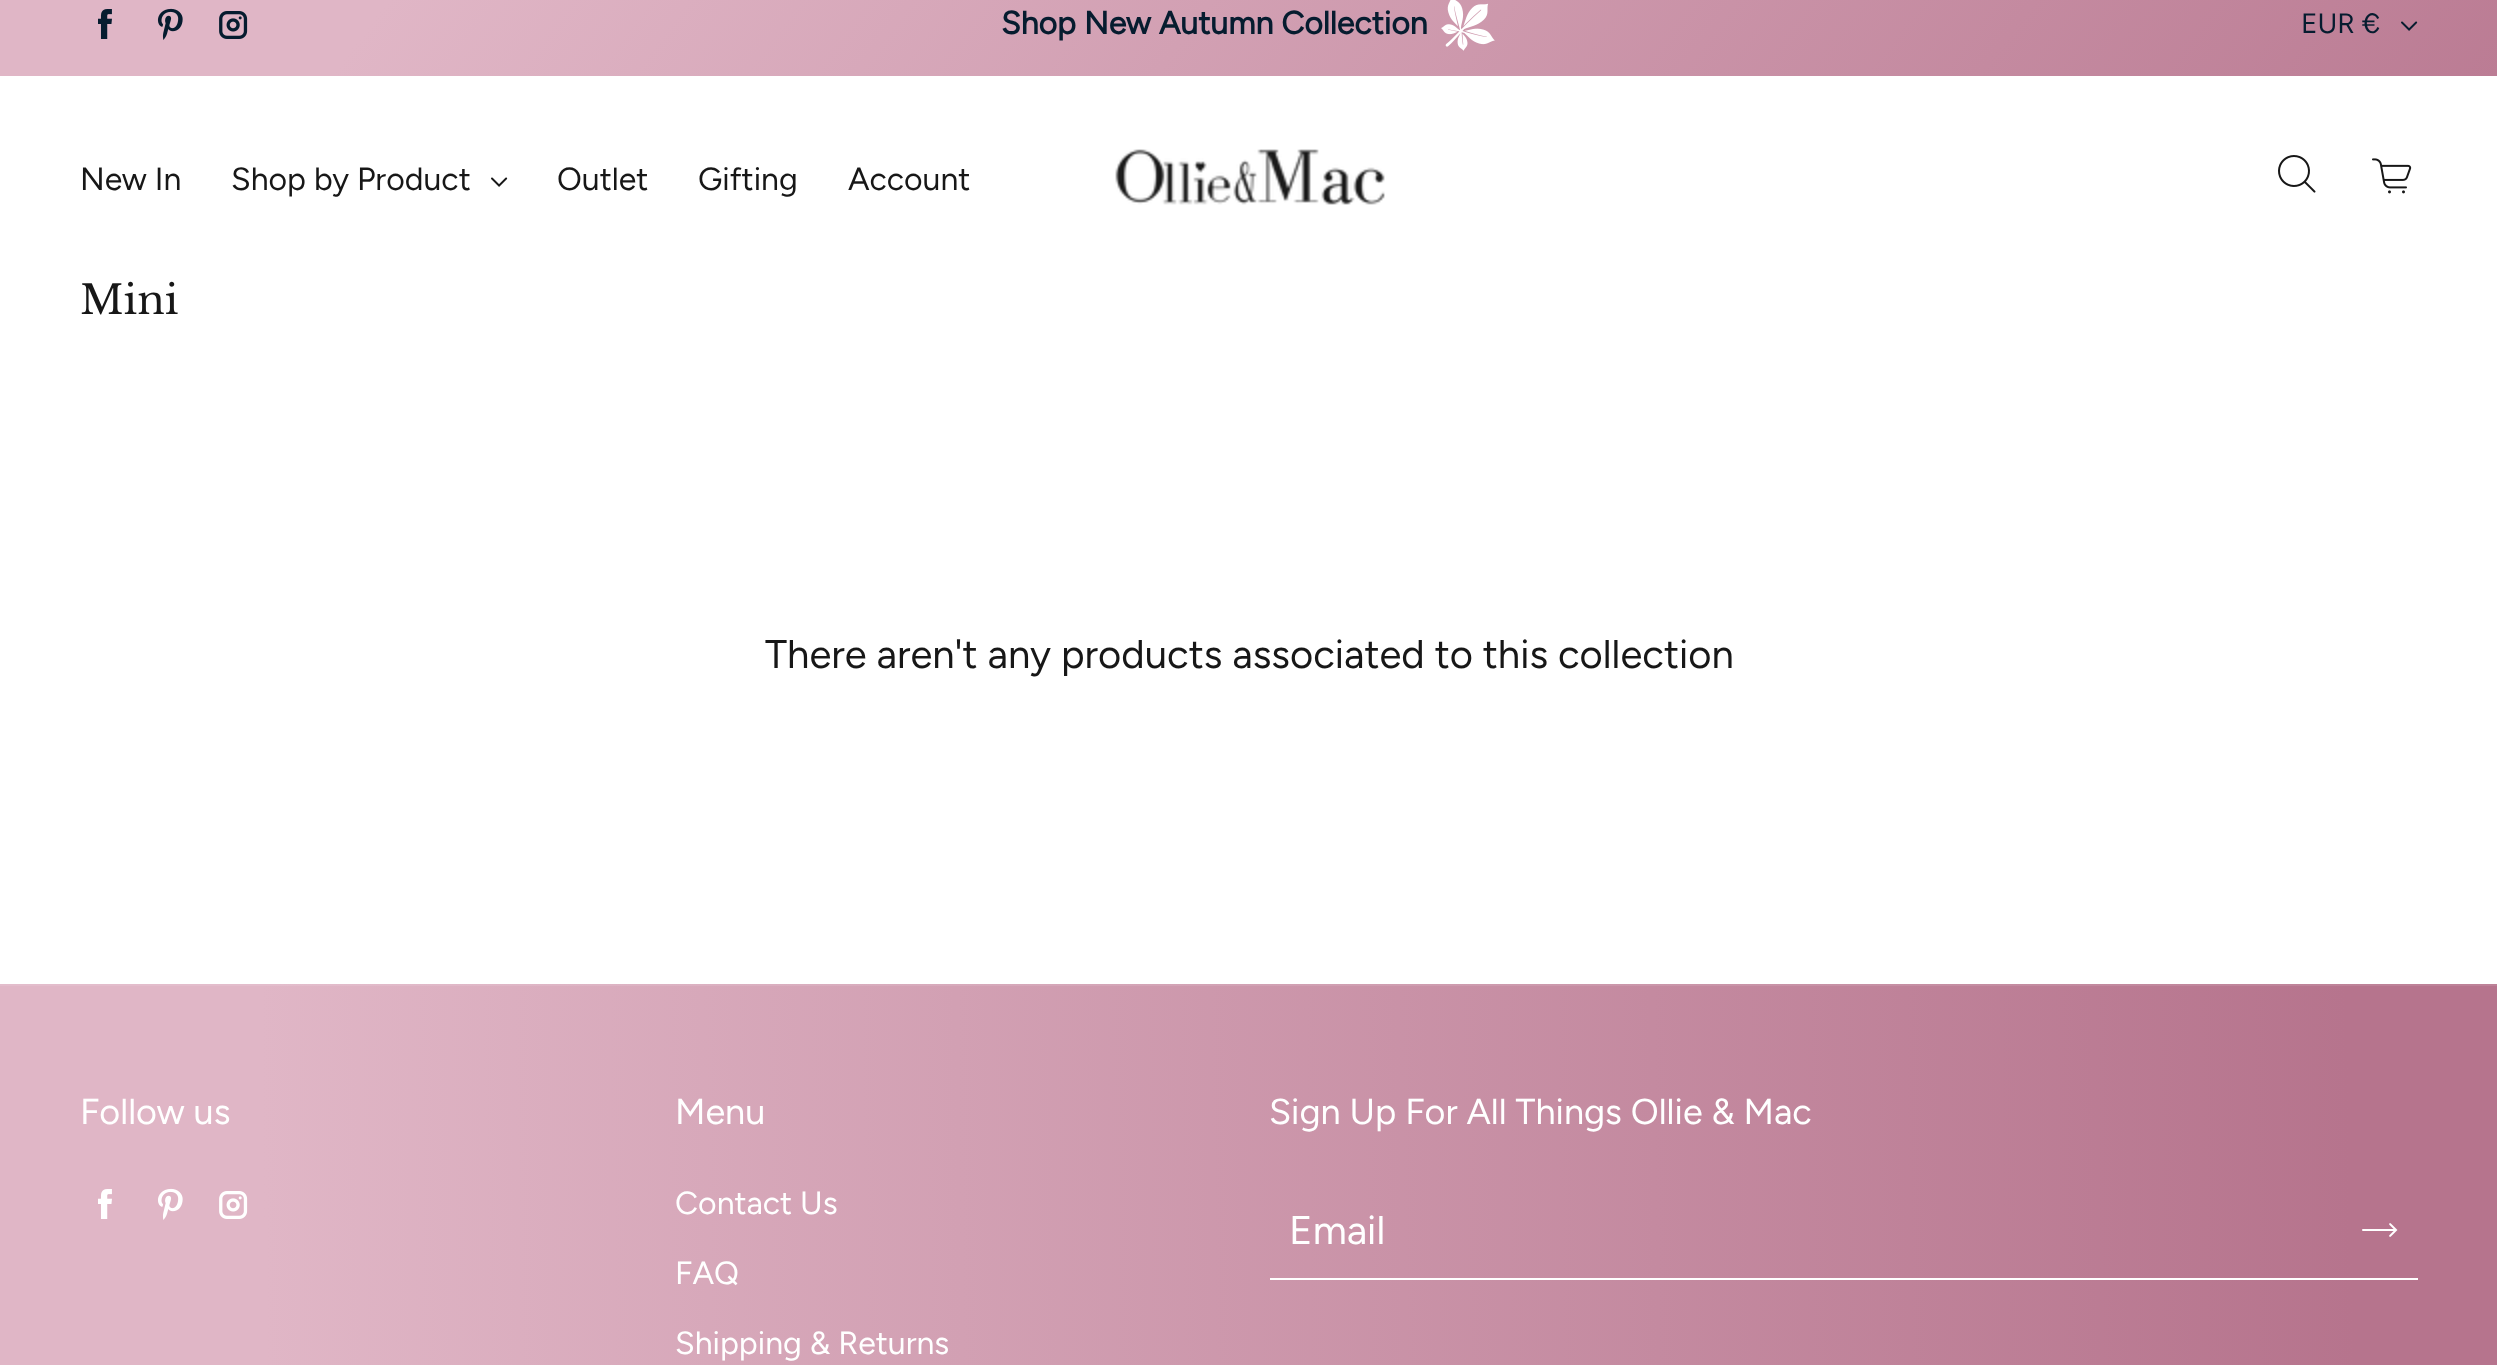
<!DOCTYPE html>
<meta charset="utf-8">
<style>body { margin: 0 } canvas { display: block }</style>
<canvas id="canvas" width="2497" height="1365"></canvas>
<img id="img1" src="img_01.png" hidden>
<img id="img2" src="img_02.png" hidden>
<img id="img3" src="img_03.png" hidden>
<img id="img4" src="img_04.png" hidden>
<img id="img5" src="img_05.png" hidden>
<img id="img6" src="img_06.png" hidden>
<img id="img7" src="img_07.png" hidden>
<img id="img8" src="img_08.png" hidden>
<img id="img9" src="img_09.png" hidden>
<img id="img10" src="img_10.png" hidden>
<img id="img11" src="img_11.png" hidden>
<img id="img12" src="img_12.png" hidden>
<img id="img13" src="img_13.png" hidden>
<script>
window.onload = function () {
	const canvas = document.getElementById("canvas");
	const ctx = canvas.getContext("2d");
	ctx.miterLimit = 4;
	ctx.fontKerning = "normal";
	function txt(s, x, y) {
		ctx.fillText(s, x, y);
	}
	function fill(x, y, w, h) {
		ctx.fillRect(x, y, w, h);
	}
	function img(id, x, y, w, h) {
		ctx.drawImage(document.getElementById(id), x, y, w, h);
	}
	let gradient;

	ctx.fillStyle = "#FFFFFF";
	fill(0, 0, 2497, 1365);
	gradient = ctx.createLinearGradient(124, -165, 2374, 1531);
	gradient.addColorStop(0.11, "#E0B6C6");
	gradient.addColorStop(0.81, "#B6748D");
	ctx.fillStyle = gradient;
	fill(0, 0, 2497, 76);
	img("img1", 98, 9, 14, 30);
	img("img2", 157, 8, 26, 32);
	img("img3", 219, 11, 29, 28);
	img("img4", 1441, 0, 54, 51);
	img("img5", 2401, 21, 17, 10);
	img("img6", 491, 177, 17, 10);
	img("img7", 1115, 149, 270, 56);
	img("img8", 2278, 155, 38, 38);
	img("img9", 2372, 158, 40, 36);
	gradient = ctx.createLinearGradient(-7.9, 536, 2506, 492);
	gradient.addColorStop(0.11, "#E3BDCC");
	gradient.addColorStop(0.94, "#BD8298");
	ctx.fillStyle = gradient;
	fill(0, 984, 2497, 2);
	gradient = ctx.createLinearGradient(-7.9, 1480, 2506, 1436);
	gradient.addColorStop(0.11, "#E0B6C6");
	gradient.addColorStop(0.94, "#B6748D");
	ctx.fillStyle = gradient;
	fill(0, 986, 2497, 379);
	img("img10", 98, 1189, 14, 30);
	img("img11", 158, 1188, 25, 32);
	img("img12", 219, 1191, 29, 28);
	img("img13", 2362, 1223, 36, 14);
	ctx.fillStyle = "#FFFFFF";
	fill(1270, 1278, 1148, 2);
	ctx.font = "bold 32px Figtree";
	ctx.fillStyle = "#061C2F";
	txt("Shop New Autumn Collection", 1001, 34);
	ctx.font = "28px Figtree";
	txt("EUR €", 2301, 33);
	ctx.font = "32px Figtree";
	ctx.fillStyle = "#171717";
	txt("New In", 80, 190);
	txt("Shop by Product", 231, 190);
	txt("Outlet", 557, 190);
	txt("Gifting", 698, 190);
	txt("Account", 848, 190);
	ctx.font = "40px Libre Baskerville";
	txt("Mini", 80, 314);
	ctx.font = "40px Figtree";
	txt("There aren't any products associated to this collection", 765, 668);
	ctx.font = "36px Figtree";
	ctx.fillStyle = "#FFFFFF";
	txt("Follow us", 80, 1124);
	txt("Menu", 675, 1124);
	ctx.font = "32px Figtree";
	txt("Contact Us", 675, 1214);
	txt("FAQ", 675, 1284);
	txt("Shipping & Returns", 675, 1354);
	ctx.font = "36px Figtree";
	txt("Sign Up For All Things Ollie & Mac", 1269, 1124);
	ctx.font = "40px Figtree";
	txt("Email", 1289, 1244);
};
</script>
